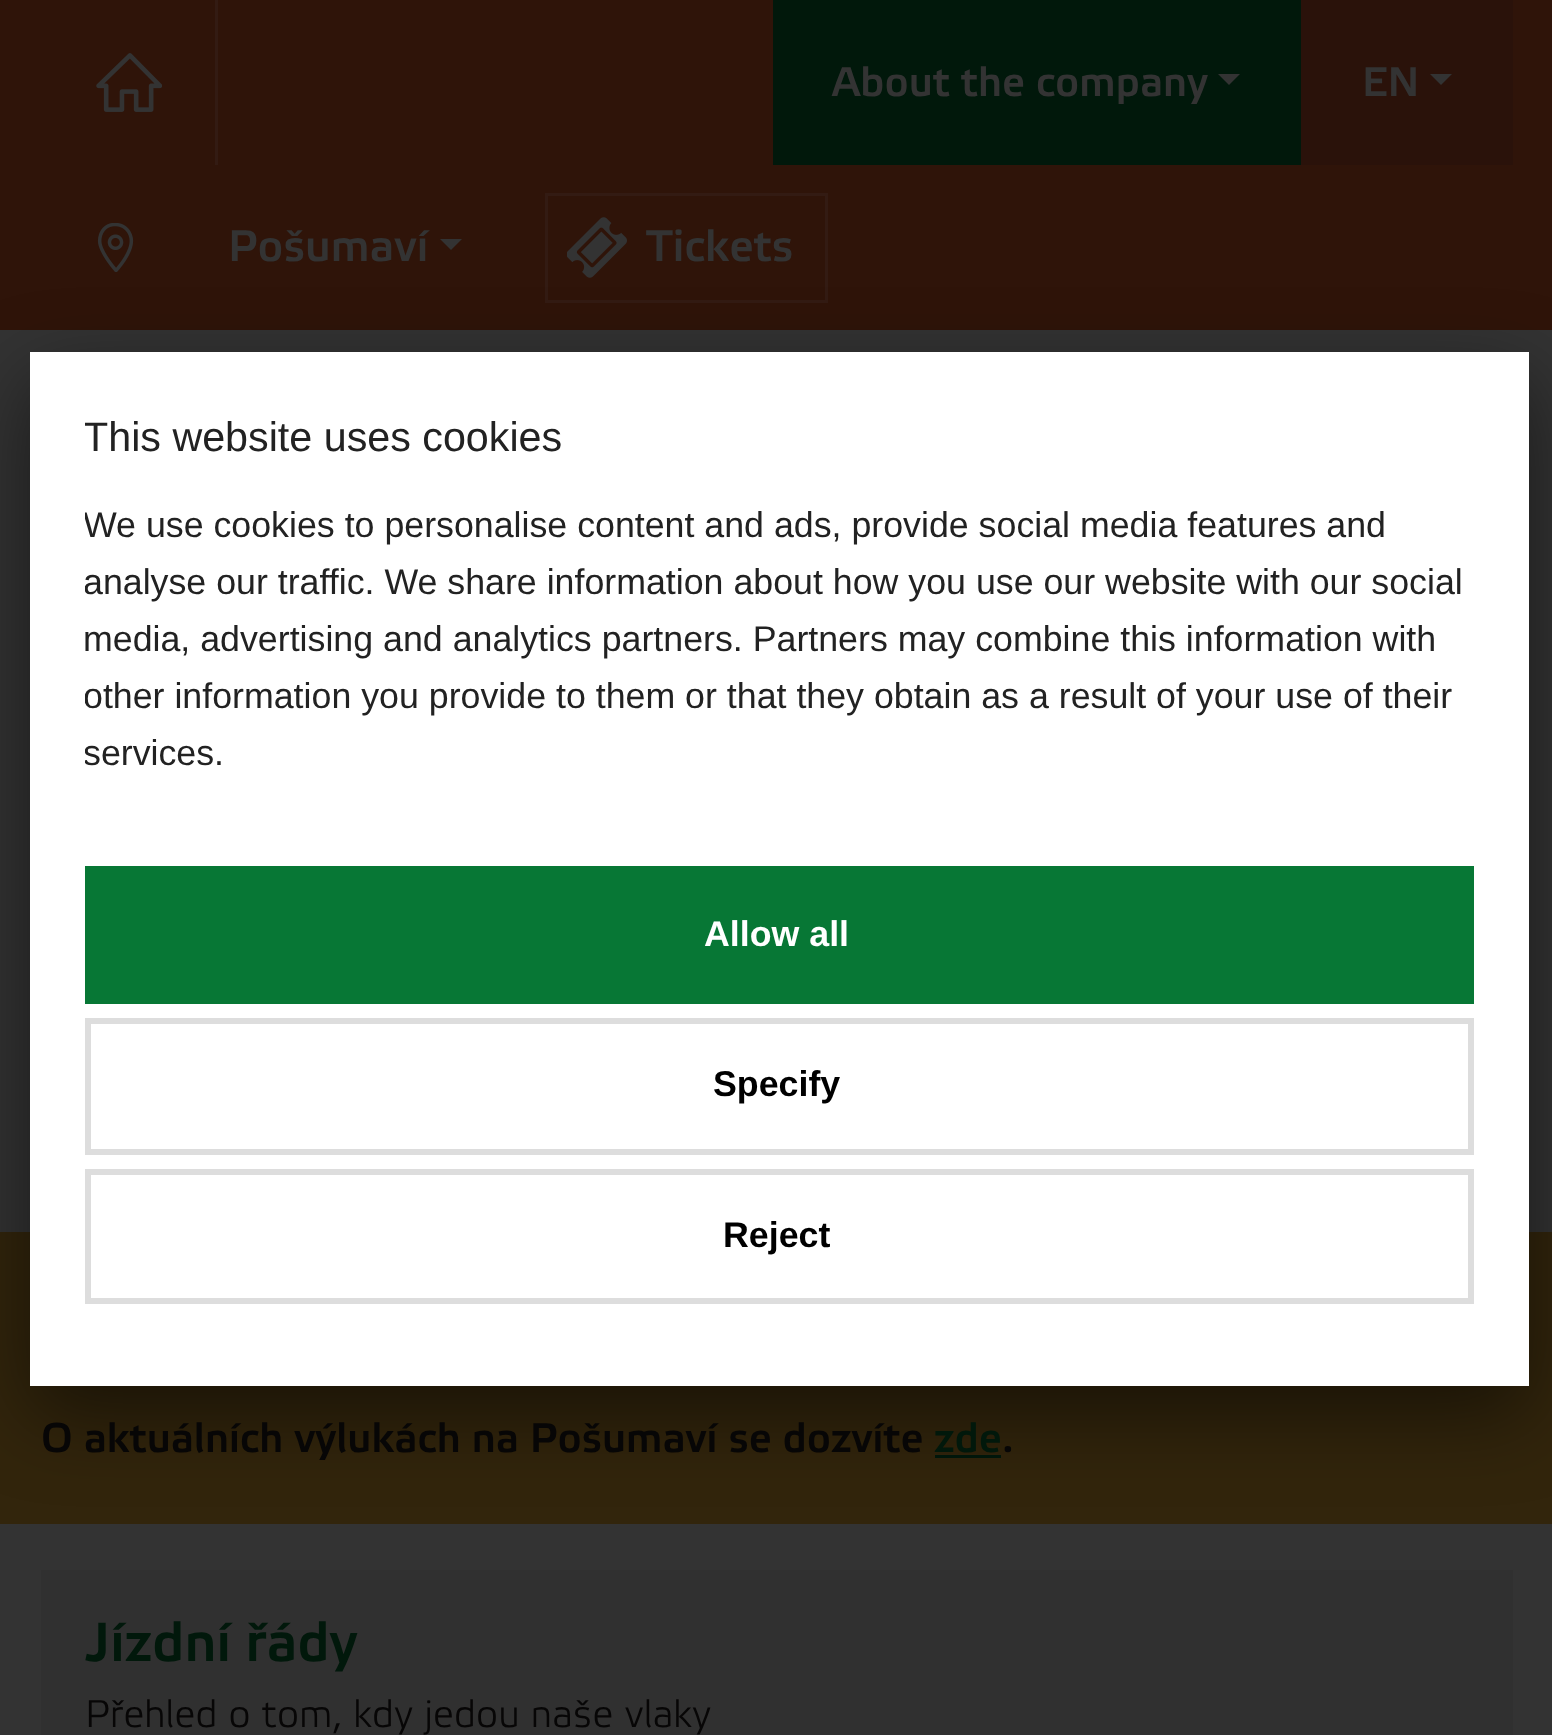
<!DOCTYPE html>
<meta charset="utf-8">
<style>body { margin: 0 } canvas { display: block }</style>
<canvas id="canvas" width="1552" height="1735"></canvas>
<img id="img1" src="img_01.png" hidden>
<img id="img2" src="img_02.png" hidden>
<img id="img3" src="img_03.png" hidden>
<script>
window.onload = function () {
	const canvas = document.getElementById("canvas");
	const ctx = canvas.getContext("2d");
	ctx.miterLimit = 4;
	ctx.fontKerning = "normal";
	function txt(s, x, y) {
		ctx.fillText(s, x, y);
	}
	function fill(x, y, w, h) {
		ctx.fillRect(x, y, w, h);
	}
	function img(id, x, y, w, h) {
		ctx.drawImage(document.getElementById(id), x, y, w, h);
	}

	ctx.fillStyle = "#333333";
	fill(0, 0, 1552, 1735);
	ctx.fillStyle = "#2F1409";
	fill(0, 0, 1552, 330);
	img("img1", 96, 53, 66, 59);
	ctx.fillStyle = "#331B13";
	fill(215, 0, 3, 165);
	ctx.fillStyle = "#01180B";
	fill(773, 0, 528, 165);
	ctx.fillStyle = "#333333";
	ctx.beginPath();
	ctx.moveTo(1218, 74);
	ctx.lineTo(1240, 74);
	ctx.lineTo(1229, 85);
	ctx.closePath();
	ctx.fill();
	ctx.fillStyle = "#2A120A";
	fill(1301, 0, 212, 165);
	ctx.fillStyle = "#333333";
	ctx.beginPath();
	ctx.moveTo(1430, 74);
	ctx.lineTo(1452, 74);
	ctx.lineTo(1441, 85);
	ctx.closePath();
	ctx.fill();
	img("img2", 97, 223, 37, 49);
	ctx.beginPath();
	ctx.moveTo(440, 239);
	ctx.lineTo(462, 239);
	ctx.lineTo(451, 250);
	ctx.closePath();
	ctx.fill();
	img("img3", 567, 217, 60, 61);
	ctx.strokeStyle = "#331B13";
	ctx.lineWidth = 3;
	ctx.strokeRect(546.5, 194.5, 280, 107);
	ctx.fillStyle = "#32250C";
	fill(0, 1232, 1552, 292);
	ctx.fillStyle = "#01180B";
	fill(935, 1455, 66, 3);
	ctx.fillStyle = "rgba(0, 0, 0, 0.5)";
	ctx.filter = "blur(41px)";
	ctx.beginPath();
	ctx.rect(30, 380, 1499, 1034);
	ctx.fill();
	ctx.filter = "none";
	ctx.fillStyle = "#FFFFFF";
	fill(30, 352, 1499, 1034);
	ctx.fillStyle = "#077735";
	fill(85, 866, 1389, 138);
	ctx.strokeStyle = "#DDDDDD";
	ctx.lineWidth = 6;
	ctx.strokeRect(88, 1021, 1383, 131);
	ctx.strokeRect(88, 1172, 1383, 129);
	ctx.fillStyle = "#303030";
	fill(41, 1570, 1472, 165);
	ctx.font = "500 41.25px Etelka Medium";
	ctx.fillStyle = "#333333";
	txt("About the company", 832, 96);
	txt("EN", 1362, 96);
	ctx.font = "500 44px Etelka Medium";
	txt("Pošumaví", 228, 261);
	txt("Tickets", 646, 261);
	ctx.save();
	ctx.beginPath();
	ctx.rect(85, 407, 1389, 404);
	ctx.clip();
	ctx.font = "41.25px Liberation Sans";
	ctx.fillStyle = "#222222";
	txt("This website uses cookies", 83, 451);
	ctx.font = "35.75px Liberation Sans";
	txt("We use cookies to personalise content and ads, provide social media features and", 83, 537);
	txt("analyse our traffic. We share information about how you use our website with our social", 83, 594);
	txt("media, advertising and analytics partners. Partners may combine this information with", 83, 651);
	txt("other information you provide to them or that they obtain as a result of your use of their", 83, 708);
	txt("services.", 83, 765);
	ctx.restore();
	ctx.font = "bold 35.75px Liberation Sans";
	ctx.fillStyle = "#FFFFFF";
	txt("Allow all", 704, 946);
	ctx.fillStyle = "#000000";
	txt("Specify", 713, 1096);
	txt("Reject", 723, 1247);
	ctx.font = "500 41.25px Etelka Medium";
	ctx.fillStyle = "#070606";
	txt("O aktuálních výlukách na Pošumaví se dozvíte", 41, 1452);
	ctx.fillStyle = "#01180B";
	txt("zde", 934, 1452);
	ctx.fillStyle = "#070606";
	txt(".", 1002, 1452);
	ctx.font = "500 55px Etelka Medium";
	ctx.fillStyle = "#01180B";
	txt("Jízdní řády", 85, 1661);
	ctx.font = "300 38.5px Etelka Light";
	ctx.fillStyle = "#070606";
	txt("Přehled o tom, kdy jedou naše vlaky", 85, 1727);
};
</script>
